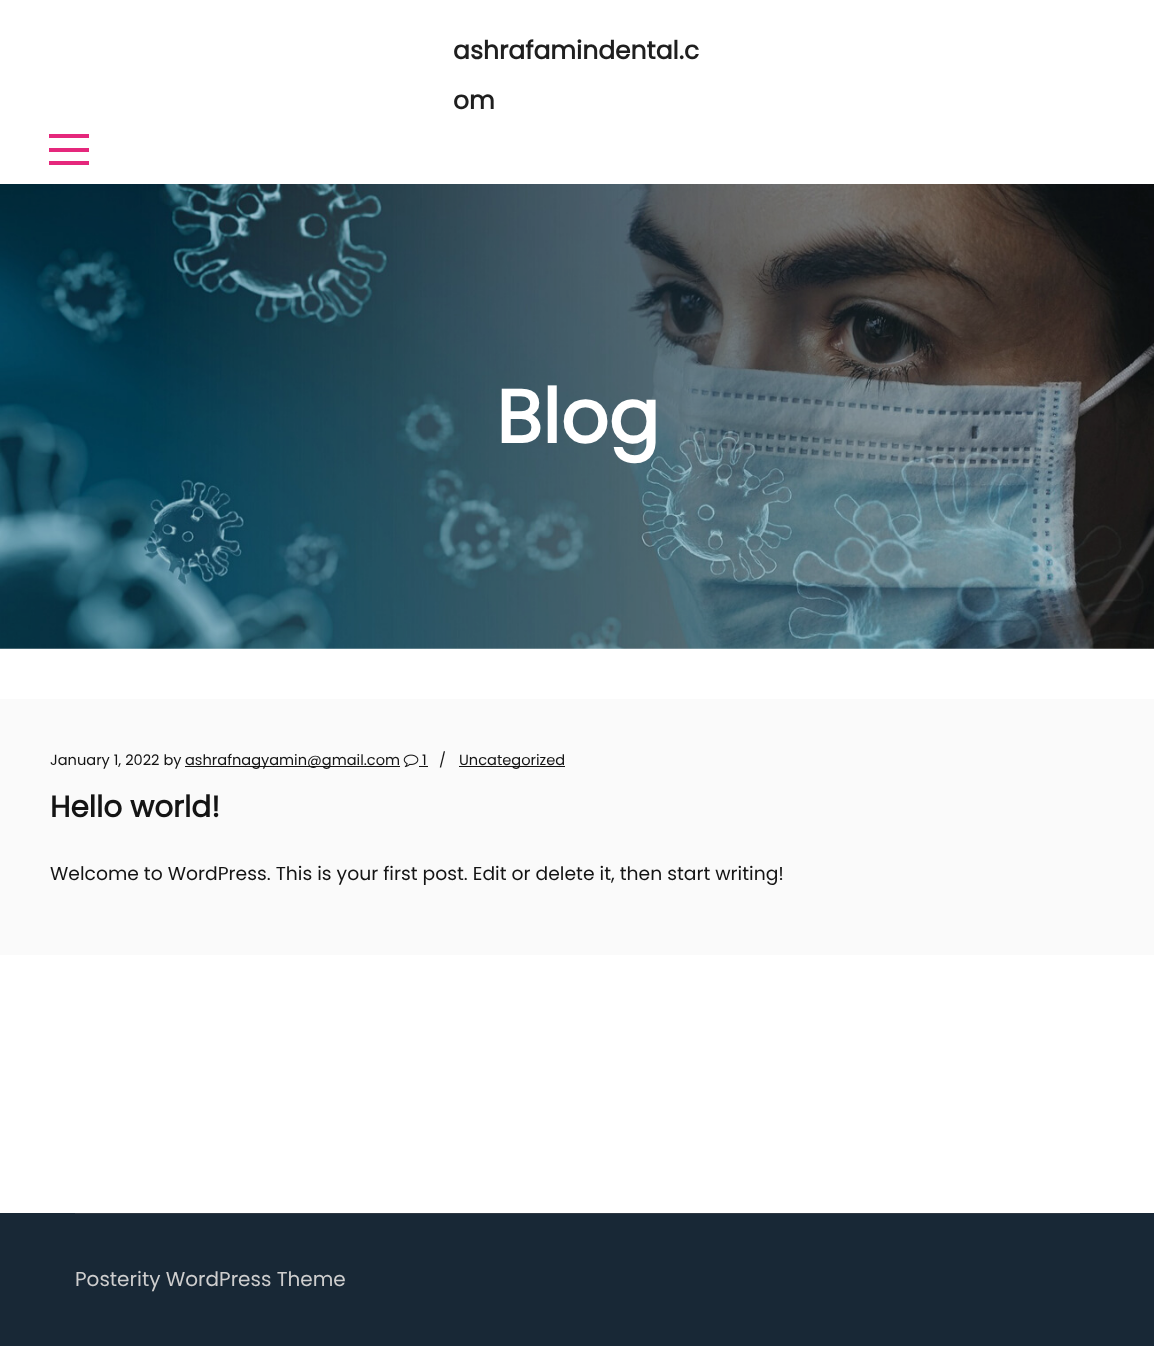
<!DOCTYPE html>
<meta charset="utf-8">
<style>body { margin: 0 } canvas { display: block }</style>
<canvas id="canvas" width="1154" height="1346"></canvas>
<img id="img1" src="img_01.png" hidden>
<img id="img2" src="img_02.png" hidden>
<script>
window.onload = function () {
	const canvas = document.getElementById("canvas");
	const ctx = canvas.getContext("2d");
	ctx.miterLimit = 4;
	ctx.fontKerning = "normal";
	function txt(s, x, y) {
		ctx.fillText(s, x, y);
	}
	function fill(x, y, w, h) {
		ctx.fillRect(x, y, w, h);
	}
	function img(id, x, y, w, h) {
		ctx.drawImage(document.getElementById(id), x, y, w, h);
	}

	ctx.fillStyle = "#FFFFFF";
	fill(0, 0, 1154, 1346);
	ctx.fillStyle = "#E5287C";
	fill(49, 134, 40, 4);
	fill(49, 148, 40, 4);
	fill(49, 161, 40, 4);
	img("img1", 0, 184, 1154, 465);
	ctx.fillStyle = "#FAFAFA";
	fill(0, 699, 1154, 256);
	ctx.fillStyle = "#141414";
	fill(185, 766, 215, 1);
	img("img2", 403, 754, 16, 14);
	fill(419, 766, 9, 1);
	fill(459, 766, 106, 1);
	ctx.fillStyle = "#182836";
	fill(0, 1213, 1154, 133);
	ctx.fillStyle = "#2E3843";
	fill(75, 1213, 1005, 1);
	ctx.font = "bold 25px Poppins";
	ctx.fillStyle = "#1F1F1F";
	txt("ashrafamindental.c", 453, 59);
	txt("om", 453, 109);
	ctx.font = "bold 75px Poppins";
	ctx.fillStyle = "#FFFFFF";
	txt("Blog", 496, 443);
	ctx.font = "14.6px Poppins";
	ctx.fillStyle = "#141414";
	txt("January 1, 2022 by", 50, 765);
	txt("ashrafnagyamin@gmail.com", 185, 765);
	txt("1", 422, 765);
	txt("/", 439, 765);
	txt("Uncategorized", 459, 765);
	ctx.font = "bold 29.5px Poppins";
	txt("Hello world!", 50, 817);
	ctx.font = "18.75px Poppins";
	txt("Welcome to WordPress. This is your first post. Edit or delete it, then start writing!", 50, 880);
	ctx.font = "20px Poppins";
	ctx.fillStyle = "#CECECE";
	txt("Posterity WordPress Theme", 75, 1286);
};
</script>
